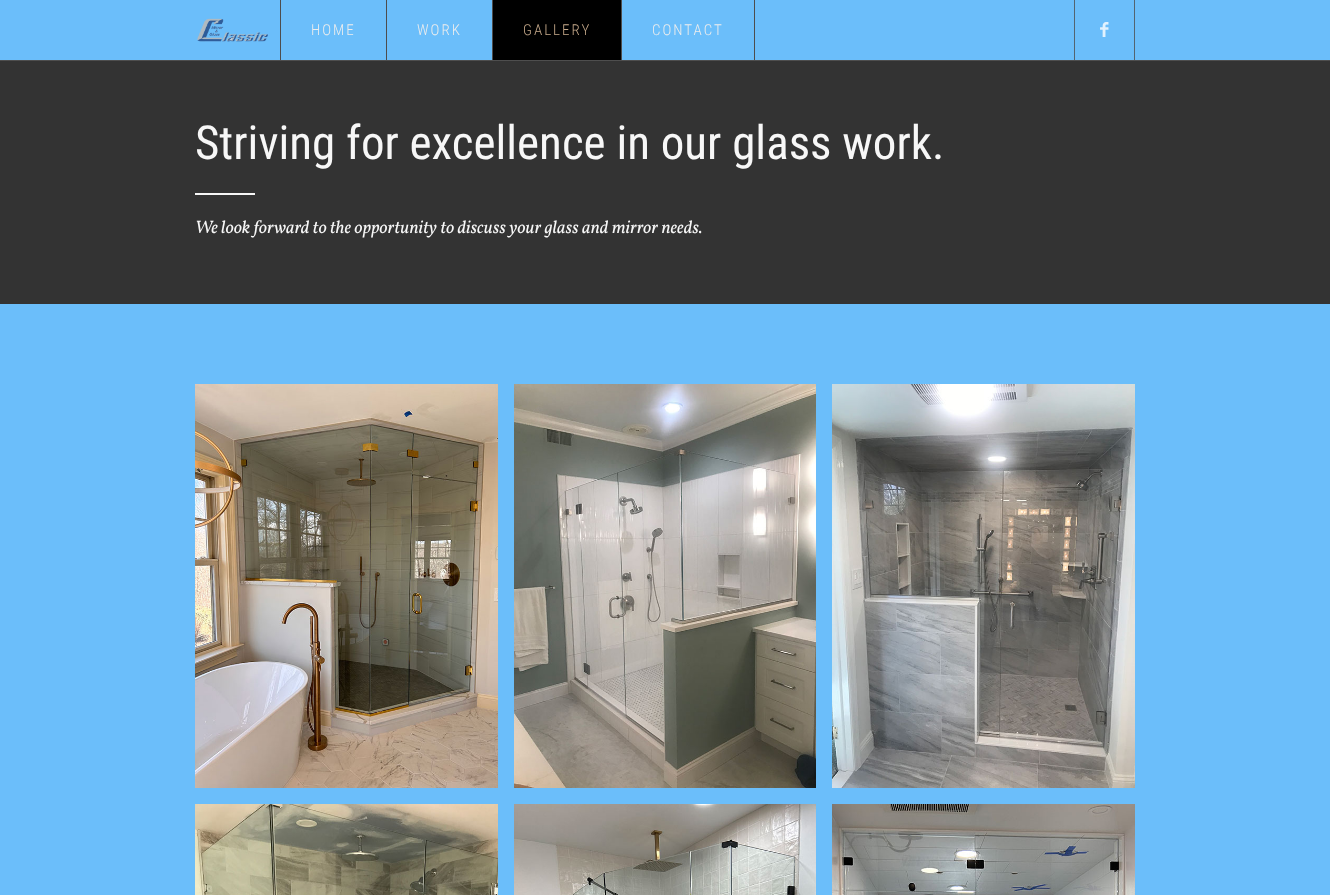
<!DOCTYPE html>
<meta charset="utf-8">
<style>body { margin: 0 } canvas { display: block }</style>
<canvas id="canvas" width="1330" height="895"></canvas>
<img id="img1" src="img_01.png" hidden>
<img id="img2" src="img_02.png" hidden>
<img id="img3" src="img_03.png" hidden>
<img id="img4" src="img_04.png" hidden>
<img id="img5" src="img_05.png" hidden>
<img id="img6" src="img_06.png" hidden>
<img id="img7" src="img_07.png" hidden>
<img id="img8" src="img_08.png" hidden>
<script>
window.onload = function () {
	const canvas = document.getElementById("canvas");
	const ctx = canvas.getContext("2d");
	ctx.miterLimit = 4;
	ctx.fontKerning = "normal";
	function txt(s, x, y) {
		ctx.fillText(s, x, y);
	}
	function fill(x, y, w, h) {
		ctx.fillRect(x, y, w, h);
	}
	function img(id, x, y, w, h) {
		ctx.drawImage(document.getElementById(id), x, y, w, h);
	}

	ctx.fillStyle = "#333333";
	fill(0, 0, 1330, 895);
	ctx.fillStyle = "#4E4E4E";
	fill(0, 60, 1330, 1);
	ctx.fillStyle = "#6BBEFA";
	fill(0, 0, 1330, 60);
	img("img1", 197, 18, 71, 24);
	ctx.fillStyle = "#4D4D4D";
	fill(280, 0, 1, 60);
	fill(386, 0, 1, 60);
	fill(492, 0, 1, 60);
	ctx.fillStyle = "#000000";
	fill(493, 0, 128, 60);
	ctx.fillStyle = "#4D4D4D";
	fill(621, 0, 1, 60);
	fill(754, 0, 1, 60);
	ctx.fillStyle = "#536470";
	fill(1134, 0, 1, 60);
	fill(1074, 0, 1, 60);
	img("img2", 1100, 22, 9, 15);
	ctx.fillStyle = "#F7F7F7";
	fill(195, 193, 60, 2);
	ctx.fillStyle = "#6BBEFA";
	fill(0, 304, 1330, 591);
	img("img3", 195, 384, 303, 404);
	img("img4", 514, 384, 302, 404);
	img("img5", 832, 384, 303, 404);
	img("img6", 195, 804, 303, 91);
	img("img7", 514, 804, 302, 91);
	img("img8", 832, 804, 303, 91);
	ctx.letterSpacing = "2px";
	ctx.font = "300 15px Roboto Condensed";
	ctx.fillStyle = "#EDEDED";
	txt("HOME", 311, 35);
	txt("WORK", 417, 35);
	ctx.fillStyle = "#C7AA8B";
	txt("GALLERY", 523, 35);
	ctx.fillStyle = "#EDEDED";
	txt("CONTACT", 652, 35);
	ctx.letterSpacing = "0px";
	ctx.font = "47px Roboto Condensed";
	ctx.fillStyle = "#F7F7F7";
	txt("Striving for excellence in our glass work.", 195, 159);
	ctx.font = "italic 18px Vollkorn";
	txt("We look forward to the opportunity to discuss your glass and mirror needs.", 195, 233);
};
</script>
